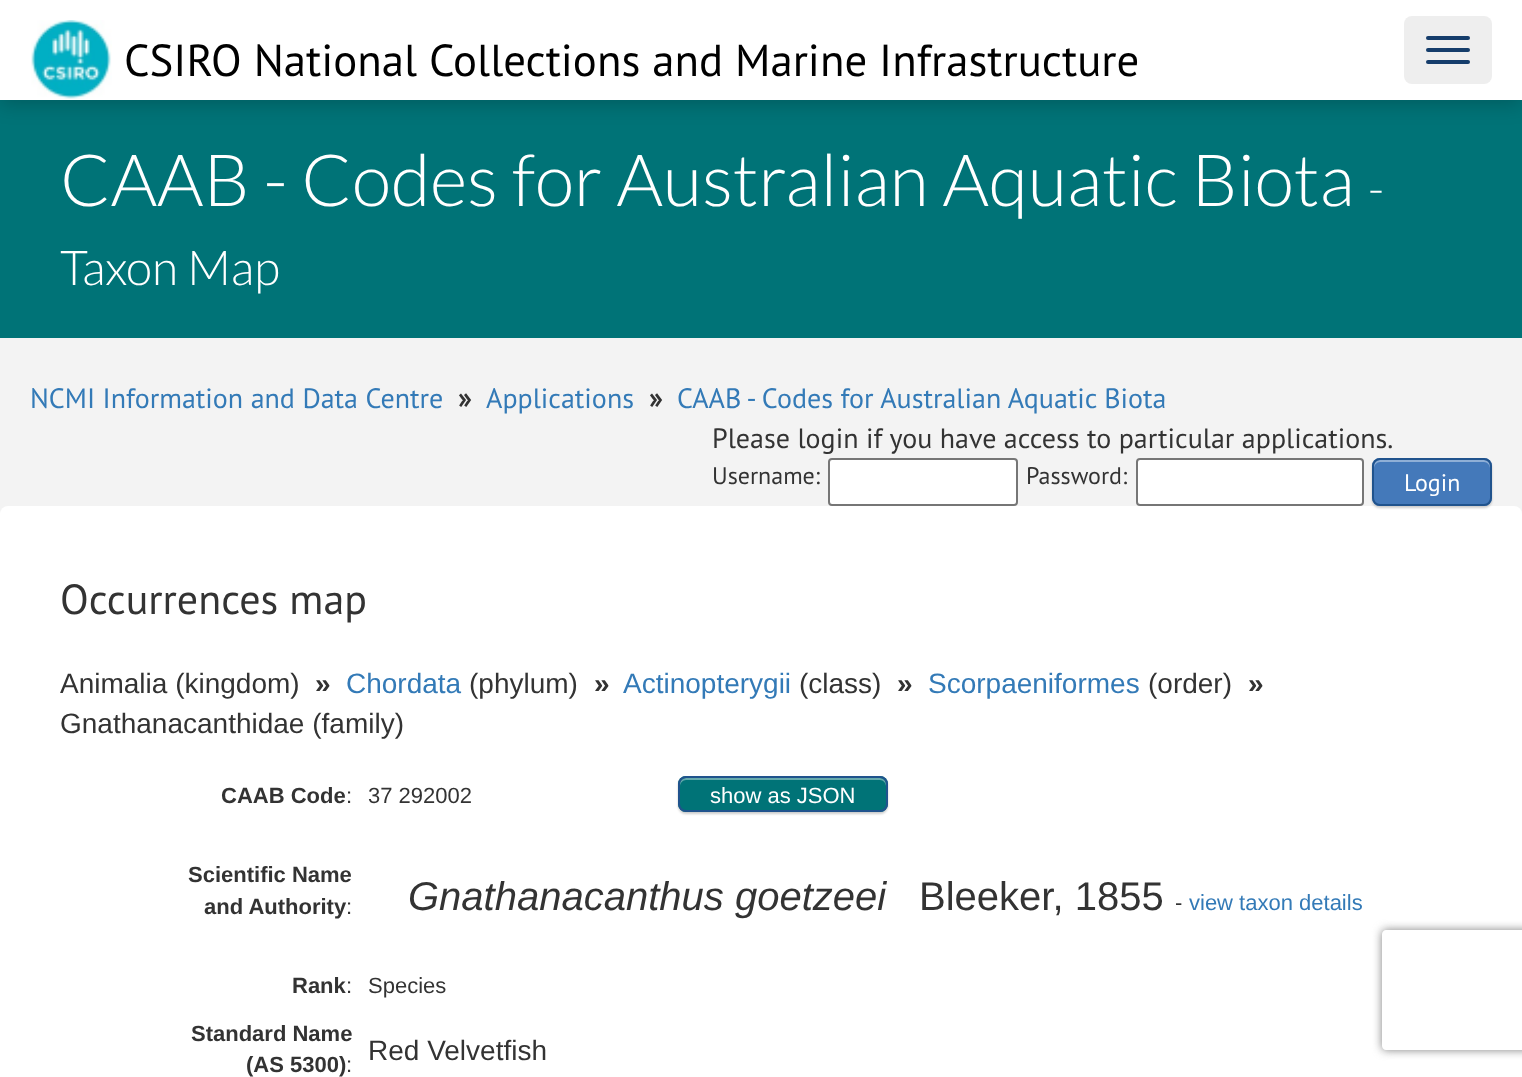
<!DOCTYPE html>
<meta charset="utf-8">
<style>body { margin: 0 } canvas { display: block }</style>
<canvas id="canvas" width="1522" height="1077"></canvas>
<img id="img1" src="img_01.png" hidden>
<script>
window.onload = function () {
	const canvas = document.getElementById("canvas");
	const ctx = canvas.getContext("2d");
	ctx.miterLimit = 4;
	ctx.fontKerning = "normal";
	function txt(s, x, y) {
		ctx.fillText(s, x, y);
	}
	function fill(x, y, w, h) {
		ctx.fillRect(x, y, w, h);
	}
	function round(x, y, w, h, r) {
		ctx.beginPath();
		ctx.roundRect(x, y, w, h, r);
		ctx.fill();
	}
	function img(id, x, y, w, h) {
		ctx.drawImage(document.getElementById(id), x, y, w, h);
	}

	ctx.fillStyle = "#F3F3F3";
	fill(0, 0, 1522, 1077);
	ctx.fillStyle = "#007377";
	fill(0, 100, 1522, 238);
	ctx.fillStyle = "rgba(0, 0, 0, 0.2)";
	ctx.filter = "blur(10px)";
	ctx.beginPath();
	ctx.rect(0, 4, 1522, 100);
	ctx.fill();
	ctx.filter = "none";
	ctx.fillStyle = "#FFFFFF";
	fill(0, 0, 1522, 100);
	img("img1", 31, 20, 81, 79);
	ctx.fillStyle = "#EEEEEE";
	round(1404, 16, 88, 68, 8);
	ctx.fillStyle = "#153D6B";
	round(1426, 36, 44, 4, 2);
	round(1426, 48, 44, 4, 2);
	round(1426, 60, 44, 4, 2);
	ctx.fillStyle = "#FFFFFF";
	ctx.beginPath();
	ctx.roundRect(829, 459, 188, 46, 3);
	ctx.fill();
	ctx.strokeStyle = "#767676";
	ctx.lineWidth = 2;
	ctx.stroke();
	ctx.beginPath();
	ctx.roundRect(1137, 459, 226, 46, 3);
	ctx.fill();
	ctx.stroke();
	round(0, 506, 1522, 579, 8);
	ctx.fillStyle = "rgba(0, 0, 0, 0.2)";
	ctx.filter = "blur(1px)";
	ctx.beginPath();
	ctx.roundRect(1372, 460, 120, 48, 8);
	ctx.fill();
	ctx.filter = "none";
	ctx.fillStyle = "#4479BA";
	round(1372, 458, 120, 48, 8);
	ctx.fillStyle = "#8FAFD6";
	ctx.beginPath();
	ctx.moveTo(1380, 462);
	ctx.lineTo(1484, 462);
	ctx.bezierCurveTo(1487, 462, 1490, 465, 1490, 468);
	ctx.lineTo(1490, 466);
	ctx.bezierCurveTo(1490, 463, 1487, 460, 1484, 460);
	ctx.lineTo(1380, 460);
	ctx.bezierCurveTo(1377, 460, 1374, 463, 1374, 466);
	ctx.lineTo(1374, 468);
	ctx.bezierCurveTo(1374, 465, 1377, 462, 1380, 462);
	ctx.closePath();
	ctx.fill();
	ctx.beginPath();
	ctx.roundRect(1373, 459, 118, 46, 7);
	ctx.strokeStyle = "#20538D";
	ctx.stroke();
	ctx.save();
	ctx.beginPath();
	ctx.moveTo(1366, 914);
	ctx.lineTo(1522, 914);
	ctx.lineTo(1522, 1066);
	ctx.lineTo(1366, 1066);
	ctx.closePath();
	ctx.moveTo(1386, 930);
	ctx.lineTo(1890, 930);
	ctx.bezierCurveTo(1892, 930, 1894, 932, 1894, 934);
	ctx.lineTo(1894, 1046);
	ctx.bezierCurveTo(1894, 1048, 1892, 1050, 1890, 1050);
	ctx.lineTo(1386, 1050);
	ctx.bezierCurveTo(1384, 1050, 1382, 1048, 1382, 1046);
	ctx.lineTo(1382, 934);
	ctx.bezierCurveTo(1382, 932, 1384, 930, 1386, 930);
	ctx.closePath();
	ctx.clip("evenodd");
	ctx.fillStyle = "#808080";
	ctx.filter = "blur(5px)";
	ctx.beginPath();
	ctx.roundRect(1382, 930, 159, 120, 4);
	ctx.fill();
	ctx.filter = "none";
	ctx.restore();
	ctx.fillStyle = "rgba(0, 0, 0, 0.2)";
	ctx.filter = "blur(1px)";
	ctx.beginPath();
	ctx.roundRect(678, 778, 210, 36, 8);
	ctx.fill();
	ctx.filter = "none";
	ctx.fillStyle = "#007377";
	round(678, 776, 210, 36, 8);
	ctx.fillStyle = "#66ABAD";
	ctx.beginPath();
	ctx.moveTo(686, 780);
	ctx.lineTo(880, 780);
	ctx.bezierCurveTo(883, 780, 886, 783, 886, 786);
	ctx.lineTo(886, 784);
	ctx.bezierCurveTo(886, 781, 883, 778, 880, 778);
	ctx.lineTo(686, 778);
	ctx.bezierCurveTo(683, 778, 680, 781, 680, 784);
	ctx.lineTo(680, 786);
	ctx.bezierCurveTo(680, 783, 683, 780, 686, 780);
	ctx.closePath();
	ctx.fill();
	ctx.beginPath();
	ctx.roundRect(679, 777, 208, 34, 7);
	ctx.stroke();
	ctx.font = "44.8px PT Sans";
	ctx.fillStyle = "#000000";
	txt("CSIRO National Collections and Marine Infrastructure", 124, 76);
	ctx.font = "300 72px Lato";
	ctx.fillStyle = "#FFFFFF";
	txt("CAAB - Codes for Australian Aquatic Biota", 60, 206);
	ctx.font = "300 48px Lato";
	txt("-", 1368, 206);
	txt("Taxon Map", 60, 285);
	ctx.font = "28px PT Sans";
	ctx.fillStyle = "#337AB7";
	txt("NCMI Information and Data Centre", 30, 408);
	ctx.font = "bold 28px PT Sans";
	ctx.fillStyle = "#333333";
	txt("»", 458, 408);
	ctx.font = "28px PT Sans";
	ctx.fillStyle = "#337AB7";
	txt("Applications", 486, 408);
	ctx.font = "bold 28px PT Sans";
	ctx.fillStyle = "#333333";
	txt("»", 649, 408);
	ctx.font = "28px PT Sans";
	ctx.fillStyle = "#337AB7";
	txt("CAAB - Codes for Australian Aquatic Biota", 677, 408);
	ctx.fillStyle = "#333333";
	txt("Please login if you have access to particular applications.", 712, 448);
	ctx.font = "24px PT Sans";
	txt("Username:", 712, 484);
	txt("Password:", 1026, 484);
	ctx.fillStyle = "#FFFFFF";
	txt("Login", 1404, 491);
	ctx.font = "42px PT Sans";
	ctx.fillStyle = "#333333";
	txt("Occurrences map", 60, 614);
	ctx.font = "28px Liberation Sans";
	txt("Animalia (kingdom)", 60, 693);
	ctx.font = "bold 28px Liberation Sans";
	txt("»", 315, 693);
	ctx.font = "28px Liberation Sans";
	ctx.fillStyle = "#337AB7";
	txt("Chordata", 346, 693);
	ctx.fillStyle = "#333333";
	txt("(phylum)", 469, 693);
	ctx.font = "bold 28px Liberation Sans";
	txt("»", 594, 693);
	ctx.font = "28px Liberation Sans";
	ctx.fillStyle = "#337AB7";
	txt("Actinopterygii", 623, 693);
	ctx.fillStyle = "#333333";
	txt("(class)", 799, 693);
	ctx.font = "bold 28px Liberation Sans";
	txt("»", 897, 693);
	ctx.font = "28px Liberation Sans";
	ctx.fillStyle = "#337AB7";
	txt("Scorpaeniformes", 928, 693);
	ctx.fillStyle = "#333333";
	txt("(order)", 1148, 693);
	ctx.font = "bold 28px Liberation Sans";
	txt("»", 1248, 693);
	ctx.font = "28px Liberation Sans";
	txt("Gnathanacanthidae (family)", 60, 733);
	ctx.font = "bold 22px Liberation Sans";
	txt("CAAB Code", 221, 803);
	ctx.font = "22px Liberation Sans";
	txt(":", 346, 803);
	txt("37 292002", 368, 803);
	ctx.fillStyle = "#FFFFFF";
	txt("show as JSON", 710, 803);
	ctx.font = "bold 22px Liberation Sans";
	ctx.fillStyle = "#333333";
	txt("Scientific Name", 188, 882);
	txt("and Authority", 204, 914);
	ctx.font = "22px Liberation Sans";
	txt(":", 346, 914);
	ctx.font = "italic 40px Liberation Sans";
	txt("Gnathanacanthus goetzeei", 408, 910);
	ctx.font = "40px Liberation Sans";
	txt("Bleeker, 1855", 919, 910);
	ctx.font = "22px Liberation Sans";
	txt("-", 1175, 910);
	ctx.fillStyle = "#337AB7";
	txt("view taxon details", 1189, 910);
	ctx.font = "bold 22px Liberation Sans";
	ctx.fillStyle = "#333333";
	txt("Rank", 292, 993);
	ctx.font = "22px Liberation Sans";
	txt(":", 346, 993);
	txt("Species", 368, 993);
	ctx.font = "bold 22px Liberation Sans";
	txt("Standard Name", 191, 1041);
	txt("(AS 5300)", 246, 1072);
	ctx.font = "22px Liberation Sans";
	txt(":", 346, 1072);
	ctx.font = "28px Liberation Sans";
	txt("Red Velvetfish", 368, 1060);
};
</script>
